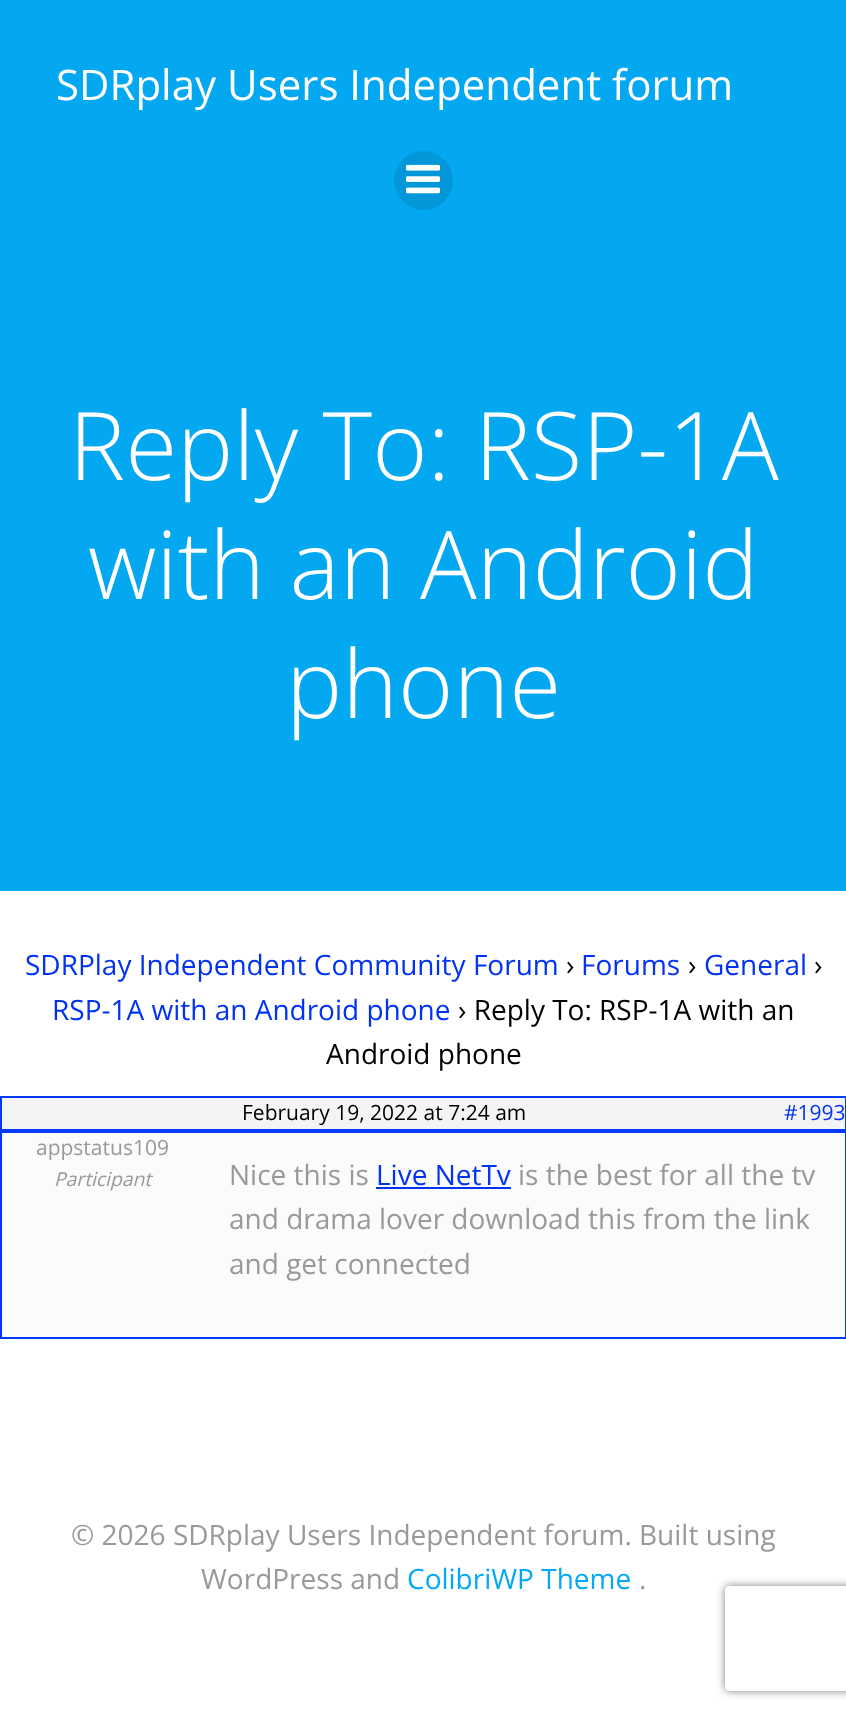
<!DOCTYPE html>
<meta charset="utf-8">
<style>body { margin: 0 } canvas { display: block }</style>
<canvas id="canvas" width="846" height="1714"></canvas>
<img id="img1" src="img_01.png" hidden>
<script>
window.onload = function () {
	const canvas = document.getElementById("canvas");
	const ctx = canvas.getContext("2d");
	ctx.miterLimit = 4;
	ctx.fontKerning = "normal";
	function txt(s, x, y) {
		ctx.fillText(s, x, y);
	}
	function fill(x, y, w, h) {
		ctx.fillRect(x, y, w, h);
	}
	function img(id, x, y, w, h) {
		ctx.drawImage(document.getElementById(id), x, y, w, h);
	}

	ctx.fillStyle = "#FFFFFF";
	fill(0, 0, 846, 1714);
	ctx.fillStyle = "#03A8F1";
	fill(0, 0, 846, 891);
	ctx.fillStyle = "#0397D9";
	ctx.beginPath();
	ctx.arc(423.5, 180.5, 29.5, 0, Math.PI * 2);
	ctx.fill();
	img("img1", 406, 164, 34, 30);
	ctx.fillStyle = "#F4F4F4";
	ctx.beginPath();
	ctx.rect(1, 1097, 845, 33);
	ctx.fill();
	ctx.strokeStyle = "#003AFC";
	ctx.lineWidth = 2;
	ctx.stroke();
	ctx.fillStyle = "#FBFBFB";
	ctx.beginPath();
	ctx.rect(1, 1132, 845, 206);
	ctx.fill();
	ctx.stroke();
	ctx.fillStyle = "#0232F4";
	fill(376, 1187, 135, 2);
	ctx.save();
	ctx.beginPath();
	ctx.moveTo(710, 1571);
	ctx.lineTo(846, 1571);
	ctx.lineTo(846, 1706);
	ctx.lineTo(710, 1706);
	ctx.closePath();
	ctx.moveTo(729, 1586);
	ctx.lineTo(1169, 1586);
	ctx.bezierCurveTo(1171, 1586, 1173, 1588, 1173, 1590);
	ctx.lineTo(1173, 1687);
	ctx.bezierCurveTo(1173, 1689, 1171, 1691, 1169, 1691);
	ctx.lineTo(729, 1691);
	ctx.bezierCurveTo(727, 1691, 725, 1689, 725, 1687);
	ctx.lineTo(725, 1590);
	ctx.bezierCurveTo(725, 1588, 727, 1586, 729, 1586);
	ctx.closePath();
	ctx.clip("evenodd");
	ctx.fillStyle = "#808080";
	ctx.filter = "blur(4.5px)";
	ctx.beginPath();
	ctx.roundRect(725, 1586, 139, 105, 4);
	ctx.fill();
	ctx.filter = "none";
	ctx.restore();
	ctx.font = "42px Open Sans";
	ctx.fillStyle = "#FFFFFF";
	txt("SDRplay Users Independent forum", 56, 100);
	ctx.font = "300 94.5px Open Sans";
	txt("Reply To: RSP-1A", 69, 480);
	txt("with an Android", 88, 599);
	txt("phone", 286, 718);
	ctx.font = "28px Open Sans";
	ctx.fillStyle = "#0232F4";
	txt("SDRPlay Independent Community Forum", 25, 975);
	ctx.fillStyle = "#000000";
	txt("›", 566, 975);
	ctx.fillStyle = "#0232F4";
	txt("Forums", 581, 975);
	ctx.fillStyle = "#000000";
	txt("›", 688, 975);
	ctx.fillStyle = "#0232F4";
	txt("General", 704, 975);
	ctx.fillStyle = "#000000";
	txt("›", 814, 975);
	ctx.fillStyle = "#0232F4";
	txt("RSP-1A with an Android phone", 52, 1020);
	ctx.fillStyle = "#000000";
	txt("› Reply To: RSP-1A with an", 458, 1020);
	txt("Android phone", 326, 1064);
	ctx.font = "21px Open Sans";
	txt("February 19, 2022 at 7:24 am", 242, 1120);
	ctx.fillStyle = "#0232F4";
	txt("#1993", 784, 1120);
	ctx.fillStyle = "#999999";
	txt("appstatus109", 36, 1155);
	ctx.font = "italic 19.25px Open Sans";
	txt("Participant", 54, 1186);
	ctx.font = "28px Open Sans";
	txt("Nice this is", 229, 1185);
	ctx.fillStyle = "#0232F4";
	txt("Live NetTv", 376, 1185);
	ctx.fillStyle = "#999999";
	txt("is the best for all the tv", 518, 1185);
	txt("and drama lover download this from the link", 229, 1229);
	txt("and get connected", 229, 1274);
	txt("© 2026 SDRplay Users Independent forum. Built using", 71, 1545);
	txt("WordPress and", 201, 1589);
	ctx.fillStyle = "#03A9F4";
	txt("ColibriWP Theme", 407, 1589);
	ctx.fillStyle = "#999999";
	txt(".", 639, 1589);
};
</script>
